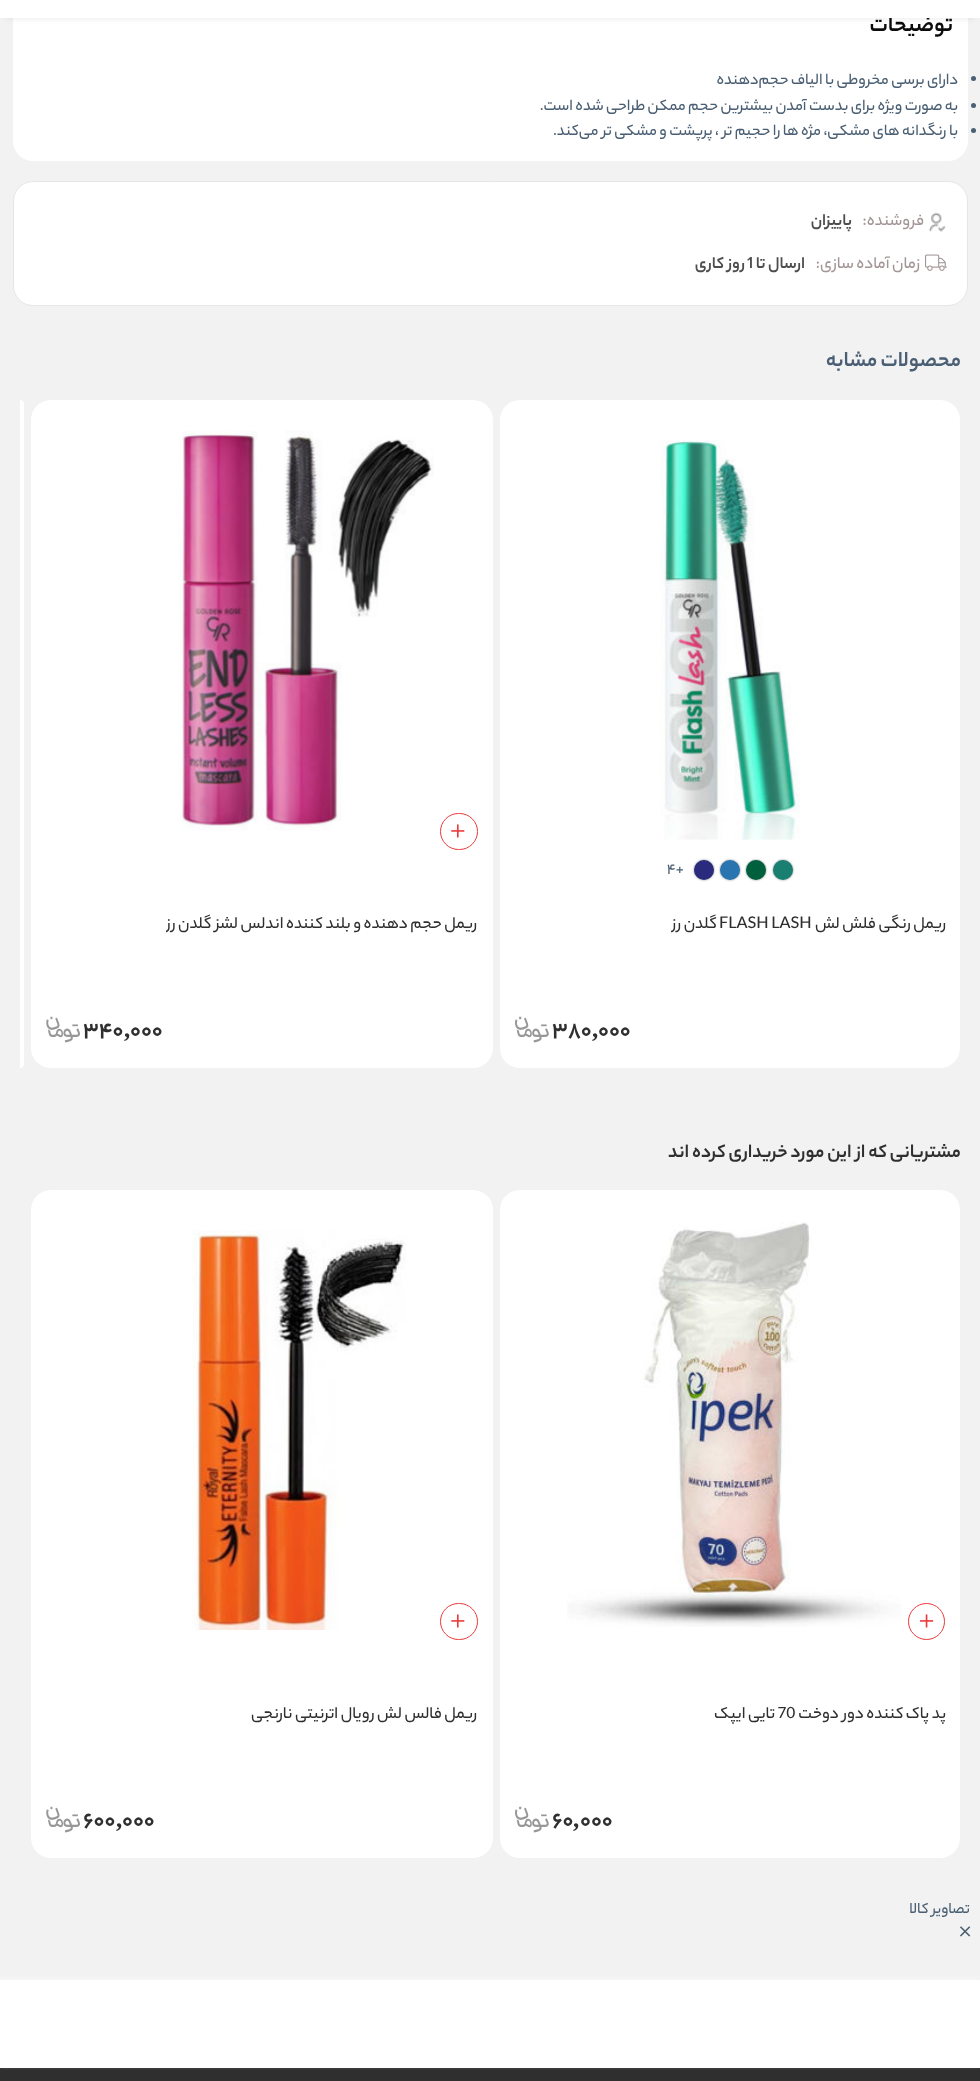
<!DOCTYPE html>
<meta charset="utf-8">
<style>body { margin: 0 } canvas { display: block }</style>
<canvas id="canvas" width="980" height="2081"></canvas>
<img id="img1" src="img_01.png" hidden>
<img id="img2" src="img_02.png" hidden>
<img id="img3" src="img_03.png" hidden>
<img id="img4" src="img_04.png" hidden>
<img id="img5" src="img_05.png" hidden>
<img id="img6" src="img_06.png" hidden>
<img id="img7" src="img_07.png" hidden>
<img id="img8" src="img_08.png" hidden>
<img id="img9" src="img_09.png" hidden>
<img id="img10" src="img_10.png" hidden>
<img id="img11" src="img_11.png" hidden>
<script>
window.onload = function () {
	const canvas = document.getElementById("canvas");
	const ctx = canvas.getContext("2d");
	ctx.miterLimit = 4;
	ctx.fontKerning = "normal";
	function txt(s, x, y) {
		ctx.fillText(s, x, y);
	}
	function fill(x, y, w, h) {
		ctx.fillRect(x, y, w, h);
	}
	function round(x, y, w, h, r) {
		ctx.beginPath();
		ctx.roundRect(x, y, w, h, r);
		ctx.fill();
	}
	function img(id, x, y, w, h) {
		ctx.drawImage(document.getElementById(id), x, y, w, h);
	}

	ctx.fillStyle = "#F2F2F2";
	fill(0, 0, 980, 2081);
	ctx.fillStyle = "#FFFFFF";
	round(13, -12, 955, 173, 20);
	ctx.fillStyle = "rgba(0, 0, 0, 0.1)";
	ctx.filter = "blur(3px)";
	ctx.beginPath();
	ctx.rect(6, 13, 968, 5);
	ctx.fill();
	ctx.filter = "none";
	ctx.fillStyle = "#4A5F73";
	ctx.beginPath();
	ctx.arc(973.5, 78.5, 2.5, 0, Math.PI * 2);
	ctx.fill();
	ctx.beginPath();
	ctx.arc(973.5, 105.5, 2.5, 0, Math.PI * 2);
	ctx.fill();
	ctx.beginPath();
	ctx.arc(973.5, 130.5, 2.5, 0, Math.PI * 2);
	ctx.fill();
	ctx.fillStyle = "#FFFFFF";
	ctx.beginPath();
	ctx.roundRect(13.5, 181.5, 954, 124, 19.5);
	ctx.fill();
	ctx.strokeStyle = "#E6E6E6";
	ctx.stroke();
	img("img1", 928, 212, 18, 20);
	img("img2", 925, 254, 22, 17);
	round(500, 400, 460, 668, 20);
	img("img3", 660, 440, 140, 400);
	ctx.fillStyle = "#888888";
	ctx.filter = "blur(1px)";
	ctx.beginPath();
	ctx.roundRect(773, 860, 20, 20, 10);
	ctx.fill();
	ctx.filter = "none";
	ctx.fillStyle = "#197F71";
	ctx.beginPath();
	ctx.arc(783, 870, 10, 0, Math.PI * 2);
	ctx.fill();
	ctx.fillStyle = "#888888";
	ctx.filter = "blur(1px)";
	ctx.beginPath();
	ctx.roundRect(746, 860, 20, 20, 10);
	ctx.fill();
	ctx.filter = "none";
	ctx.fillStyle = "#005F3C";
	ctx.beginPath();
	ctx.arc(756, 870, 10, 0, Math.PI * 2);
	ctx.fill();
	ctx.fillStyle = "#888888";
	ctx.filter = "blur(1px)";
	ctx.beginPath();
	ctx.roundRect(720, 860, 20, 20, 10);
	ctx.fill();
	ctx.filter = "none";
	ctx.fillStyle = "#FFFFFF";
	ctx.beginPath();
	ctx.moveTo(724, 852.5);
	ctx.lineTo(736, 852.5);
	ctx.lineTo(730, 859);
	ctx.closePath();
	ctx.fill();
	ctx.fillStyle = "#2A75AF";
	ctx.beginPath();
	ctx.arc(730, 870, 10, 0, Math.PI * 2);
	ctx.fill();
	ctx.fillStyle = "#888888";
	ctx.filter = "blur(1px)";
	ctx.beginPath();
	ctx.roundRect(694, 860, 20, 20, 10);
	ctx.fill();
	ctx.filter = "none";
	ctx.fillStyle = "#2A2B7D";
	ctx.beginPath();
	ctx.arc(704, 870, 10, 0, Math.PI * 2);
	ctx.fill();
	img("img4", 515, 1016, 34, 27);
	ctx.fillStyle = "#FFFFFF";
	round(31, 400, 462, 668, 20);
	ctx.beginPath();
	ctx.roundRect(440.5, 813.5, 37, 36, 18);
	ctx.strokeStyle = "#EB3A3A";
	ctx.stroke();
	img("img5", 451, 824, 14, 14);
	img("img6", 179, 430, 255, 401);
	img("img7", 46, 1016, 34, 27);
	ctx.beginPath();
	ctx.roundRect(20, 400, 4, 668, [0, 20, 20, 0]);
	ctx.fill();
	round(500, 1190, 460, 668, 20);
	ctx.beginPath();
	ctx.arc(926.5, 1621.5, 18, 0, Math.PI * 2);
	ctx.stroke();
	img("img8", 920, 1614, 14, 14);
	img("img9", 567, 1222, 334, 405);
	img("img4", 515, 1806, 34, 27);
	round(31, 1190, 462, 668, 20);
	ctx.beginPath();
	ctx.roundRect(440.5, 1603.5, 37, 36, 18);
	ctx.stroke();
	img("img5", 451, 1614, 14, 14);
	img("img10", 192, 1230, 214, 400);
	img("img7", 46, 1806, 34, 27);
	img("img11", 960, 1926, 11, 11);
	ctx.fillStyle = "#2F2F2F";
	fill(0, 2068, 980, 13);
	ctx.fillStyle = "rgba(248, 248, 248, 0.97)";
	ctx.filter = "blur(2.5px)";
	ctx.beginPath();
	ctx.rect(0, 1978, 980, 87);
	ctx.fill();
	ctx.filter = "none";
	ctx.fillStyle = "#FFFFFF";
	fill(0, 1980, 980, 88);
	ctx.direction = "rtl";
	ctx.font = "bold 24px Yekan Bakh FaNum";
	ctx.fillStyle = "#0C0C0C";
	txt("توضیحات", 953, 31);
	ctx.fillStyle = "#FFFFFF";
	fill(0, 0, 980, 18);
	ctx.font = "500 16.7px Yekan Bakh";
	ctx.fillStyle = "#4A5F73";
	txt("دارای برسی مخروطی با الیاف حجم‌دهنده", 958, 84);
	txt("به صورت ویژه برای بدست آمدن بیشترین حجم ممکن طراحی شده است.", 958, 110);
	txt("با رنگدانه های مشکی، مژه ها را حجیم تر ، پرپشت و مشکی تر می‌کند.", 958, 135);
	ctx.font = "500 17.5px Yekan Bakh";
	ctx.fillStyle = "#A39595";
	txt("فروشنده:", 924, 225);
	ctx.font = "bold 17.5px Yekan Bakh";
	ctx.fillStyle = "#4E4E4E";
	txt("پاییزان", 852, 225);
	ctx.font = "500 17.5px Yekan Bakh";
	ctx.fillStyle = "#A39595";
	txt("زمان آماده سازی:", 920, 268);
	ctx.font = "bold 17.5px Yekan Bakh";
	ctx.fillStyle = "#4E4E4E";
	txt("ارسال تا", 805, 268);
	ctx.direction = "ltr";
	txt("1", 747, 268);
	ctx.direction = "rtl";
	txt("روز کاری", 745, 268);
	ctx.font = "bold 22.5px Yekan Bakh";
	ctx.fillStyle = "#4A5F73";
	txt("محصولات مشابه", 961, 366);
	ctx.direction = "ltr";
	ctx.font = "500 16px Yekan Bakh FaNum";
	txt("4+", 667, 873);
	ctx.direction = "rtl";
	ctx.font = "500 17.5px Yekan Bakh";
	ctx.fillStyle = "#2F2F2F";
	txt("ریمل رنگی فلش لش", 946, 928);
	ctx.direction = "ltr";
	txt("FLASH LASH", 719, 928);
	ctx.save();
	ctx.beginPath();
	ctx.rect(671, 913, 274, 26);
	ctx.clip();
	ctx.direction = "rtl";
	txt("گلدن رز", 717, 928);
	ctx.restore();
	ctx.font = "bold 25px Yekan Bakh FaNum";
	txt("000", 598, 1037);
	txt("380", 552, 1037);
	ctx.font = "bold 25px Liberation Serif";
	txt(",", 592, 1037);
	ctx.save();
	ctx.beginPath();
	ctx.rect(166, 913, 312, 26);
	ctx.clip();
	ctx.direction = "rtl";
	ctx.font = "500 17.5px Yekan Bakh";
	txt("ریمل حجم دهنده و بلند کننده اندلس لشز گلدن رز", 477, 928);
	ctx.restore();
	ctx.font = "bold 25px Yekan Bakh FaNum";
	txt("000", 130, 1037);
	txt("340", 83, 1037);
	ctx.font = "bold 25px Liberation Serif";
	txt(",", 124, 1037);
	ctx.direction = "rtl";
	ctx.font = "bold 20px Yekan Bakh FaNum";
	txt("مشتریانی که از این مورد خریداری کرده اند", 961, 1157);
	ctx.font = "500 17.5px Yekan Bakh";
	txt("پد پاک کننده دور دوخت", 946, 1718);
	ctx.direction = "ltr";
	txt("70", 778, 1718);
	ctx.direction = "rtl";
	txt("تایی ایپک", 775, 1718);
	ctx.direction = "ltr";
	ctx.font = "bold 25px Yekan Bakh FaNum";
	txt("000", 580, 1827);
	txt("60", 552, 1827);
	ctx.font = "bold 25px Liberation Serif";
	txt(",", 573, 1827);
	ctx.direction = "rtl";
	ctx.font = "500 17.5px Yekan Bakh";
	txt("ریمل فالس لش رویال اترنیتی نارنجی", 477, 1718);
	ctx.direction = "ltr";
	ctx.font = "bold 25px Yekan Bakh FaNum";
	txt("000", 122, 1827);
	txt("600", 83, 1827);
	ctx.font = "bold 25px Liberation Serif";
	txt(",", 116, 1827);
	ctx.direction = "rtl";
	ctx.font = "500 16px Yekan Bakh FaNum";
	ctx.fillStyle = "#4A5F73";
	txt("تصاویر کالا", 970, 1913);
};
</script>
